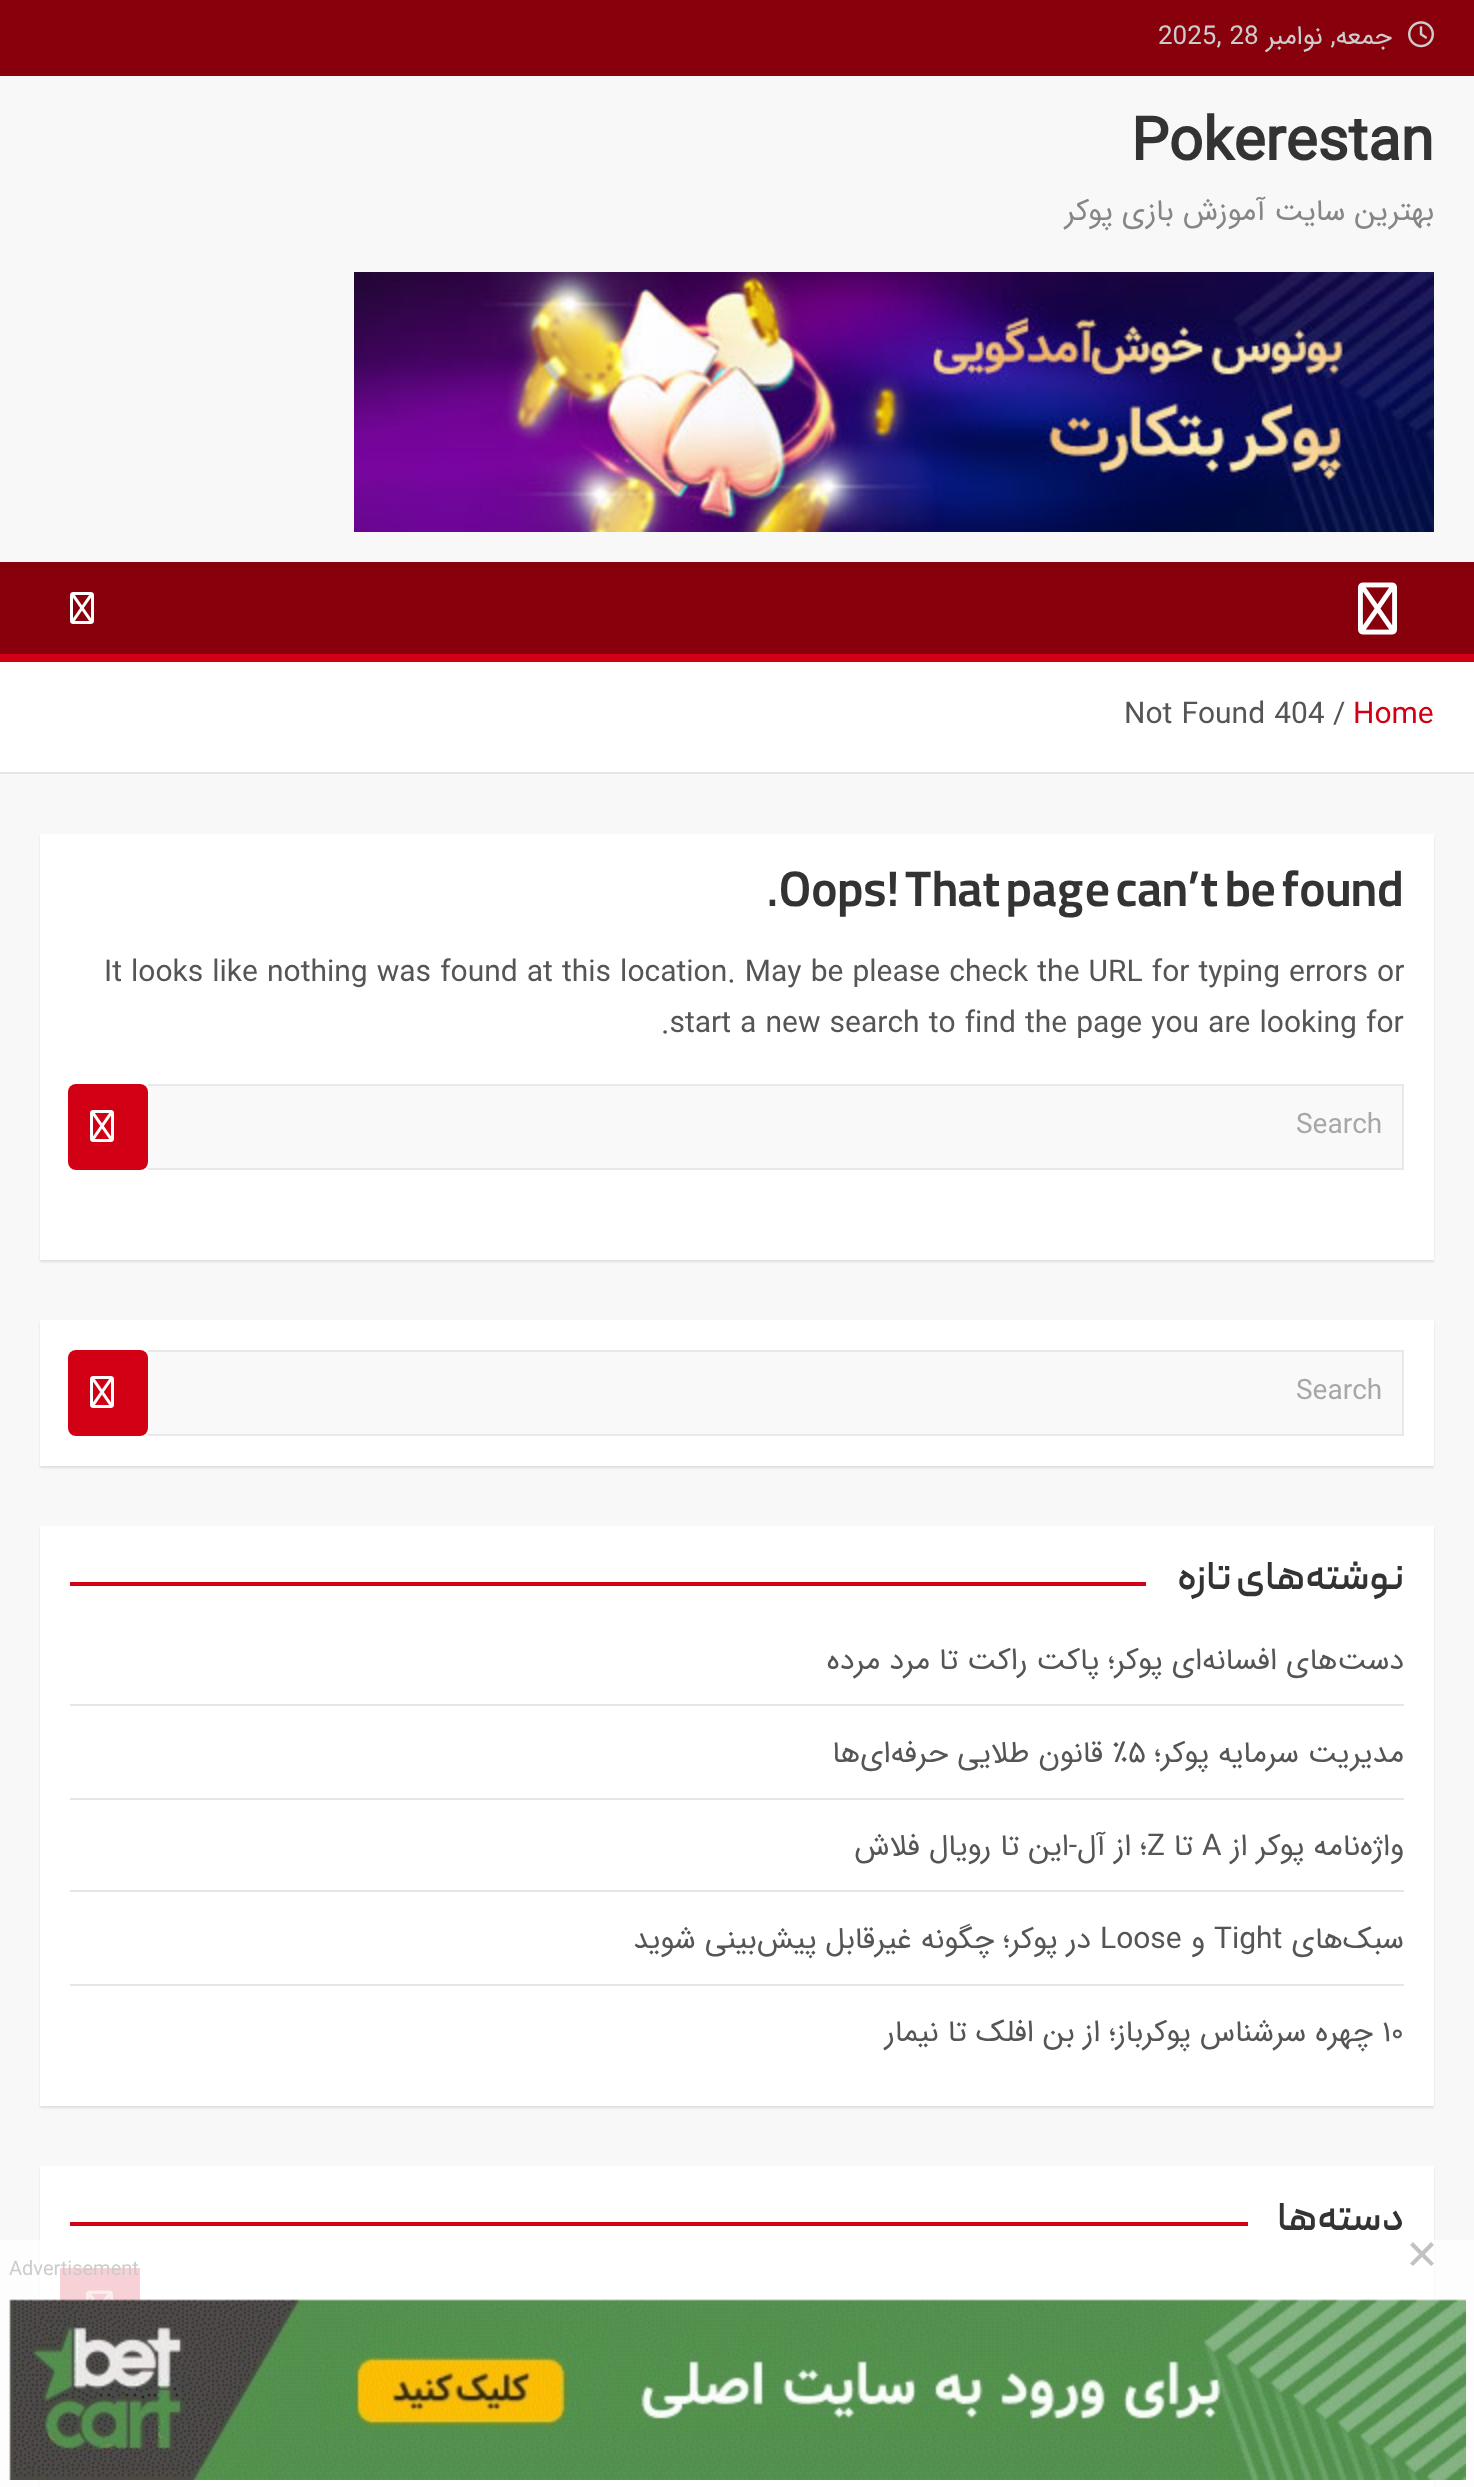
<!DOCTYPE html>
<meta charset="utf-8">
<style>body { margin: 0 } canvas { display: block }</style>
<canvas id="canvas" width="1474" height="2487"></canvas>
<img id="img1" src="img_01.png" hidden>
<img id="img2" src="img_02.png" hidden>
<img id="img3" src="img_03.png" hidden>
<img id="img4" src="img_04.png" hidden>
<img id="img5" src="img_05.png" hidden>
<img id="img6" src="img_06.png" hidden>
<img id="img7" src="img_07.png" hidden>
<script>
window.onload = function () {
	const canvas = document.getElementById("canvas");
	const ctx = canvas.getContext("2d");
	ctx.miterLimit = 4;
	ctx.fontKerning = "normal";
	function txt(s, x, y) {
		ctx.fillText(s, x, y);
	}
	function fill(x, y, w, h) {
		ctx.fillRect(x, y, w, h);
	}
	function round(x, y, w, h, r) {
		ctx.beginPath();
		ctx.roundRect(x, y, w, h, r);
		ctx.fill();
	}
	function img(id, x, y, w, h) {
		ctx.drawImage(document.getElementById(id), x, y, w, h);
	}

	ctx.fillStyle = "#F8F8F8";
	fill(0, 0, 1474, 2487);
	ctx.fillStyle = "#89000D";
	fill(0, 0, 1474, 76);
	img("img1", 1408, 21, 26, 27);
	img("img2", 354, 272, 1080, 260);
	fill(0, 562, 1474, 92);
	img("img3", 1358, 582, 39, 53);
	img("img4", 70, 592, 24, 32);
	ctx.fillStyle = "#D10014";
	fill(0, 654, 1474, 8);
	ctx.fillStyle = "#FFFFFF";
	fill(0, 662, 1474, 110);
	ctx.fillStyle = "#E6E6E6";
	fill(0, 772, 1474, 2);
	ctx.fillStyle = "rgba(0, 0, 0, 0.1)";
	ctx.filter = "blur(1px)";
	ctx.beginPath();
	ctx.rect(40, 836, 1394, 426);
	ctx.fill();
	ctx.filter = "none";
	ctx.fillStyle = "#FFFFFF";
	fill(40, 834, 1394, 426);
	ctx.fillStyle = "#F9F9F9";
	fill(148, 1086, 1254, 82);
	ctx.fillStyle = "#E8E8E8";
	ctx.beginPath();
	ctx.moveTo(148, 1084);
	ctx.lineTo(1404, 1084);
	ctx.lineTo(1402, 1086);
	ctx.lineTo(148, 1086);
	ctx.closePath();
	ctx.fill();
	ctx.fillStyle = "rgba(0, 0, 0, 0.09)";
	ctx.beginPath();
	ctx.moveTo(1404, 1084);
	ctx.lineTo(1404, 1170);
	ctx.lineTo(1402, 1168);
	ctx.lineTo(1402, 1086);
	ctx.closePath();
	ctx.fill();
	ctx.beginPath();
	ctx.moveTo(1404, 1170);
	ctx.lineTo(148, 1170);
	ctx.lineTo(148, 1168);
	ctx.lineTo(1402, 1168);
	ctx.closePath();
	ctx.fill();
	ctx.fillStyle = "#D10014";
	round(68, 1084, 80, 86, 8);
	img("img5", 90, 1110, 24, 32);
	ctx.fillStyle = "rgba(0, 0, 0, 0.1)";
	ctx.filter = "blur(1px)";
	ctx.beginPath();
	ctx.rect(40, 1322, 1394, 146);
	ctx.fill();
	ctx.filter = "none";
	ctx.fillStyle = "#FFFFFF";
	fill(40, 1320, 1394, 146);
	ctx.fillStyle = "#F9F9F9";
	fill(148, 1352, 1254, 82);
	ctx.fillStyle = "#E8E8E8";
	ctx.beginPath();
	ctx.moveTo(148, 1350);
	ctx.lineTo(1404, 1350);
	ctx.lineTo(1402, 1352);
	ctx.lineTo(148, 1352);
	ctx.closePath();
	ctx.fill();
	ctx.fillStyle = "rgba(0, 0, 0, 0.09)";
	ctx.beginPath();
	ctx.moveTo(1404, 1350);
	ctx.lineTo(1404, 1436);
	ctx.lineTo(1402, 1434);
	ctx.lineTo(1402, 1352);
	ctx.closePath();
	ctx.fill();
	ctx.beginPath();
	ctx.moveTo(1404, 1436);
	ctx.lineTo(148, 1436);
	ctx.lineTo(148, 1434);
	ctx.lineTo(1402, 1434);
	ctx.closePath();
	ctx.fill();
	ctx.fillStyle = "#D10014";
	round(68, 1350, 80, 86, 8);
	img("img5", 90, 1376, 24, 32);
	ctx.fillStyle = "rgba(0, 0, 0, 0.1)";
	ctx.filter = "blur(1px)";
	ctx.beginPath();
	ctx.rect(40, 1528, 1394, 580);
	ctx.fill();
	ctx.filter = "none";
	ctx.fillStyle = "#FFFFFF";
	fill(40, 1526, 1394, 580);
	ctx.fillStyle = "#D10014";
	fill(70, 1582, 1076, 4);
	ctx.fillStyle = "#E6E6E6";
	fill(70, 1704, 1334, 2);
	fill(70, 1798, 1334, 2);
	fill(70, 1890, 1334, 2);
	fill(70, 1984, 1334, 2);
	ctx.fillStyle = "rgba(0, 0, 0, 0.1)";
	ctx.filter = "blur(1px)";
	ctx.beginPath();
	ctx.rect(40, 2168, 1394, 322);
	ctx.fill();
	ctx.filter = "none";
	ctx.fillStyle = "#FFFFFF";
	fill(40, 2166, 1394, 321);
	ctx.fillStyle = "#D10014";
	fill(70, 2222, 1178, 4);
	ctx.fillStyle = "#E36672";
	fill(60, 2268, 80, 33);
	img("img6", 86, 2290, 27, 11);
	ctx.fillStyle = "rgba(255, 255, 255, 0.7)";
	fill(0, 2240, 1474, 247);
	ctx.fillStyle = "#C2C2C2";
	ctx.beginPath();
	ctx.moveTo(1431, 2242);
	ctx.lineTo(1434, 2245);
	ctx.lineTo(1413, 2266);
	ctx.lineTo(1410, 2263.5);
	ctx.closePath();
	ctx.fill();
	ctx.beginPath();
	ctx.moveTo(1410, 2245);
	ctx.lineTo(1413, 2242);
	ctx.lineTo(1434, 2263.5);
	ctx.lineTo(1431, 2266);
	ctx.closePath();
	ctx.fill();
	img("img7", 9, 2299, 1457, 181);
	ctx.direction = "rtl";
	ctx.font = "26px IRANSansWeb";
	ctx.fillStyle = "#CCCCCC";
	txt("جمعه, نوامبر", 1392, 44);
	ctx.direction = "ltr";
	txt("2025, 28", 1158, 44);
	ctx.font = "bold 60px IRANSansWeb";
	ctx.fillStyle = "#333333";
	txt("Pokerestan", 1131, 160);
	ctx.direction = "rtl";
	ctx.font = "30px IRANSansWeb";
	ctx.fillStyle = "#868686";
	txt("بهترین سایت آموزش بازی پوکر", 1434, 220);
	ctx.direction = "ltr";
	ctx.fillStyle = "#D10014";
	txt("Home", 1353, 723);
	ctx.fillStyle = "#555555";
	txt("/", 1333, 723);
	txt("Not Found 404", 1124, 723);
	ctx.font = "600 50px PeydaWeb";
	ctx.fillStyle = "#333333";
	txt(".Oops! That page can’t be found", 766, 906);
	ctx.font = "30px IRANSansWeb";
	ctx.fillStyle = "#555555";
	txt("It looks like nothing was found at this location. May be please check the URL for typing errors or", 104, 981);
	txt(".start a new search to find the page you are looking for", 661, 1032);
	ctx.font = "28px IRANSansWeb";
	ctx.fillStyle = "#A7A7A7";
	txt("Search", 1296, 1133);
	txt("Search", 1296, 1399);
	ctx.direction = "rtl";
	ctx.font = "600 40px PeydaWeb";
	ctx.fillStyle = "#333333";
	txt("نوشته‌های تازه", 1404, 1589);
	ctx.font = "30px IRANSansWeb";
	ctx.fillStyle = "#555555";
	txt("دست‌های افسانه‌ای پوکر؛ پاکت راکت تا مرد مرده", 1404, 1669);
	txt("مدیریت سرمایه پوکر؛", 1404, 1762);
	ctx.direction = "ltr";
	txt("۵", 1128, 1762);
	ctx.direction = "rtl";
	txt("٪ قانون طلایی حرفه‌ای‌ها", 1128, 1762);
	txt("واژه‌نامه پوکر از", 1404, 1855);
	ctx.direction = "ltr";
	txt("A", 1202, 1855);
	ctx.direction = "rtl";
	txt("تا", 1193, 1855);
	ctx.direction = "ltr";
	txt("Z", 1147, 1855);
	ctx.direction = "rtl";
	txt("؛ از آل-این تا رویال فلاش", 1147, 1855);
	txt("سبک‌های", 1404, 1948);
	ctx.direction = "ltr";
	txt("Tight", 1214, 1948);
	ctx.direction = "rtl";
	txt("و", 1205, 1948);
	ctx.direction = "ltr";
	txt("Loose", 1100, 1948);
	ctx.direction = "rtl";
	txt("در پوکر؛ چگونه غیرقابل پیش‌بینی شوید", 1091, 1948);
	ctx.direction = "ltr";
	txt("۱۰", 1382, 2041);
	ctx.direction = "rtl";
	txt("چهره سرشناس پوکرباز؛ از بن افلک تا نیمار", 1373, 2041);
	ctx.font = "600 40px PeydaWeb";
	ctx.fillStyle = "#333333";
	txt("دسته‌ها", 1404, 2230);
	ctx.direction = "ltr";
	ctx.font = "20px Roboto";
	ctx.fillStyle = "#CCCCCC";
	txt("Advertisement", 9, 2275);
};
</script>
